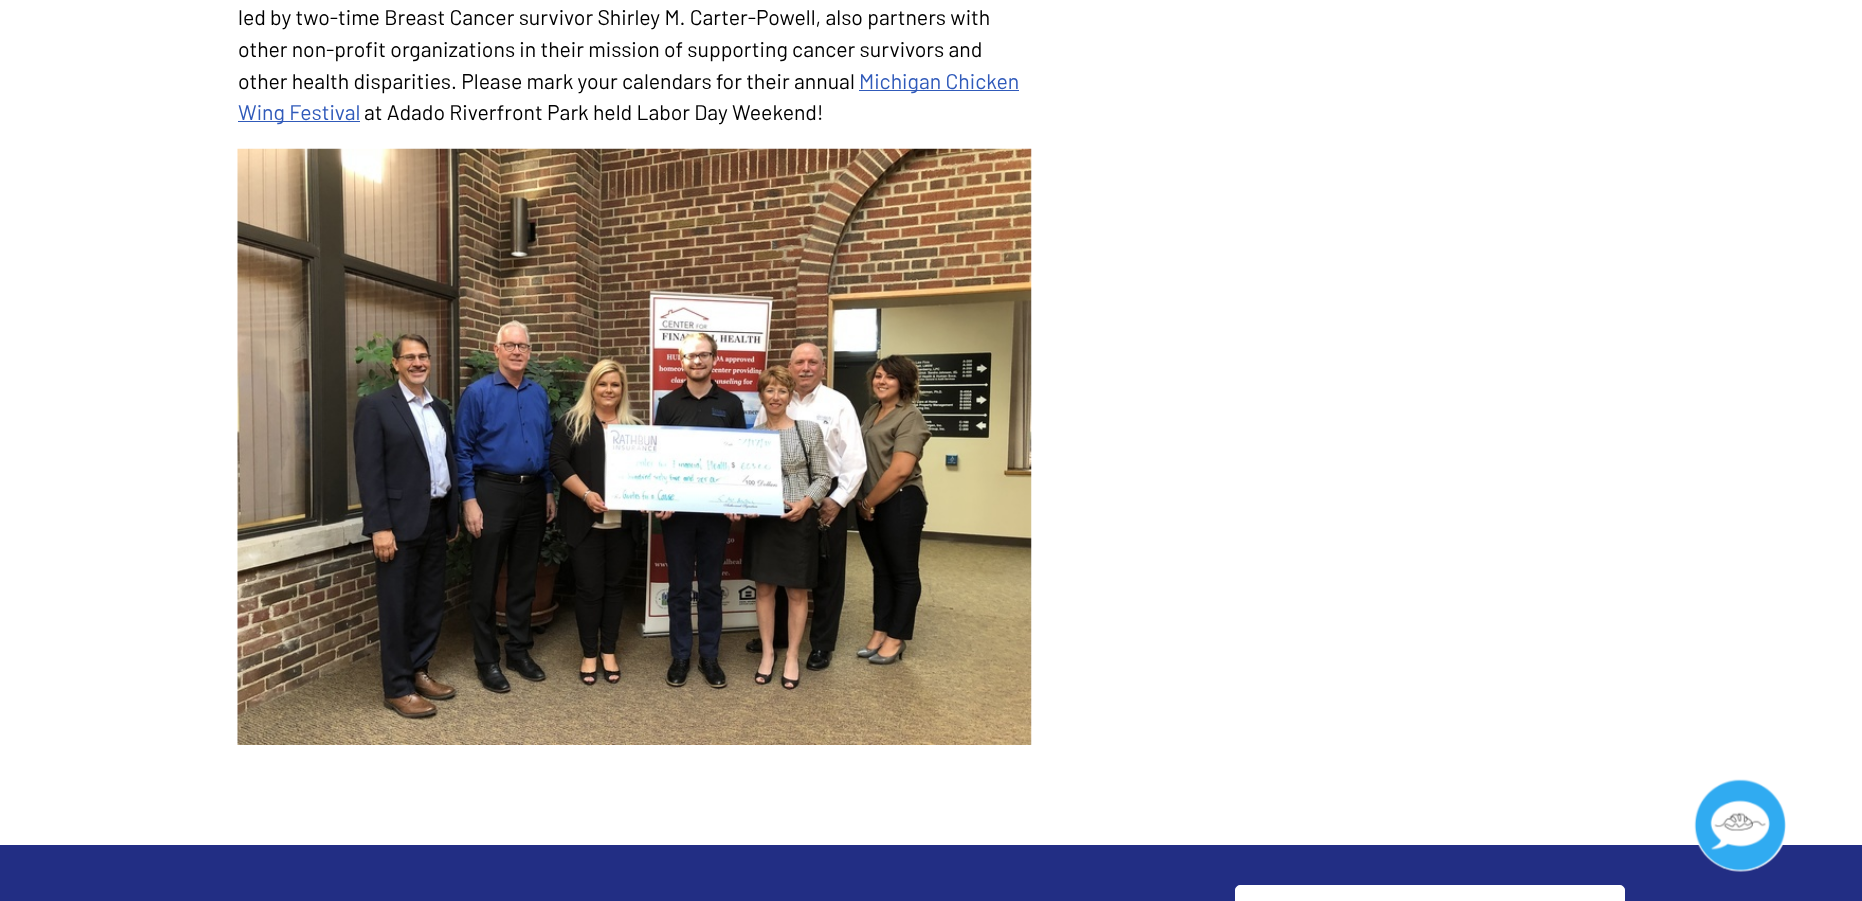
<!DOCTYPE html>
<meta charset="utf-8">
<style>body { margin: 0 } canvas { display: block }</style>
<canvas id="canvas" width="1862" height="901"></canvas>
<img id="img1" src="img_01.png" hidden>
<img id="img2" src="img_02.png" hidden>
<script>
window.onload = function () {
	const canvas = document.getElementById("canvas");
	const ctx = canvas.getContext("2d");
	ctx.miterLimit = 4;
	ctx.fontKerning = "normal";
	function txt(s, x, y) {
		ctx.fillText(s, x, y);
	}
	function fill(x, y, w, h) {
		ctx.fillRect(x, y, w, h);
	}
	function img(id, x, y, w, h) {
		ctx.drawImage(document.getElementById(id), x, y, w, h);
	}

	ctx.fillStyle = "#FFFFFF";
	fill(0, 0, 1862, 901);
	ctx.fillStyle = "#305ABA";
	fill(859, 90, 160, 1);
	fill(238, 121, 122, 1);
	img("img1", 237, 148, 795, 597);
	ctx.fillStyle = "#222E84";
	fill(0, 845, 1862, 56);
	ctx.fillStyle = "#FFFFFF";
	ctx.beginPath();
	ctx.roundRect(1235.5, 885.5, 389, 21, 4.5);
	ctx.fill();
	ctx.strokeStyle = "#FFFFFF";
	ctx.stroke();
	img("img2", 1694, 779, 92, 93);
	ctx.font = "21.25px Barlow";
	ctx.fillStyle = "#000000";
	txt("led by two-time Breast Cancer survivor Shirley M. Carter-Powell, also partners with", 238, 25);
	txt("other non-profit organizations in their mission of supporting cancer survivors and", 238, 57);
	txt("other health disparities. Please mark your calendars for their annual", 238, 89);
	ctx.fillStyle = "#305ABA";
	txt("Michigan Chicken", 859, 89);
	txt("Wing Festival", 238, 120);
	ctx.fillStyle = "#000000";
	txt("at Adado Riverfront Park held Labor Day Weekend!", 364, 120);
};
</script>
